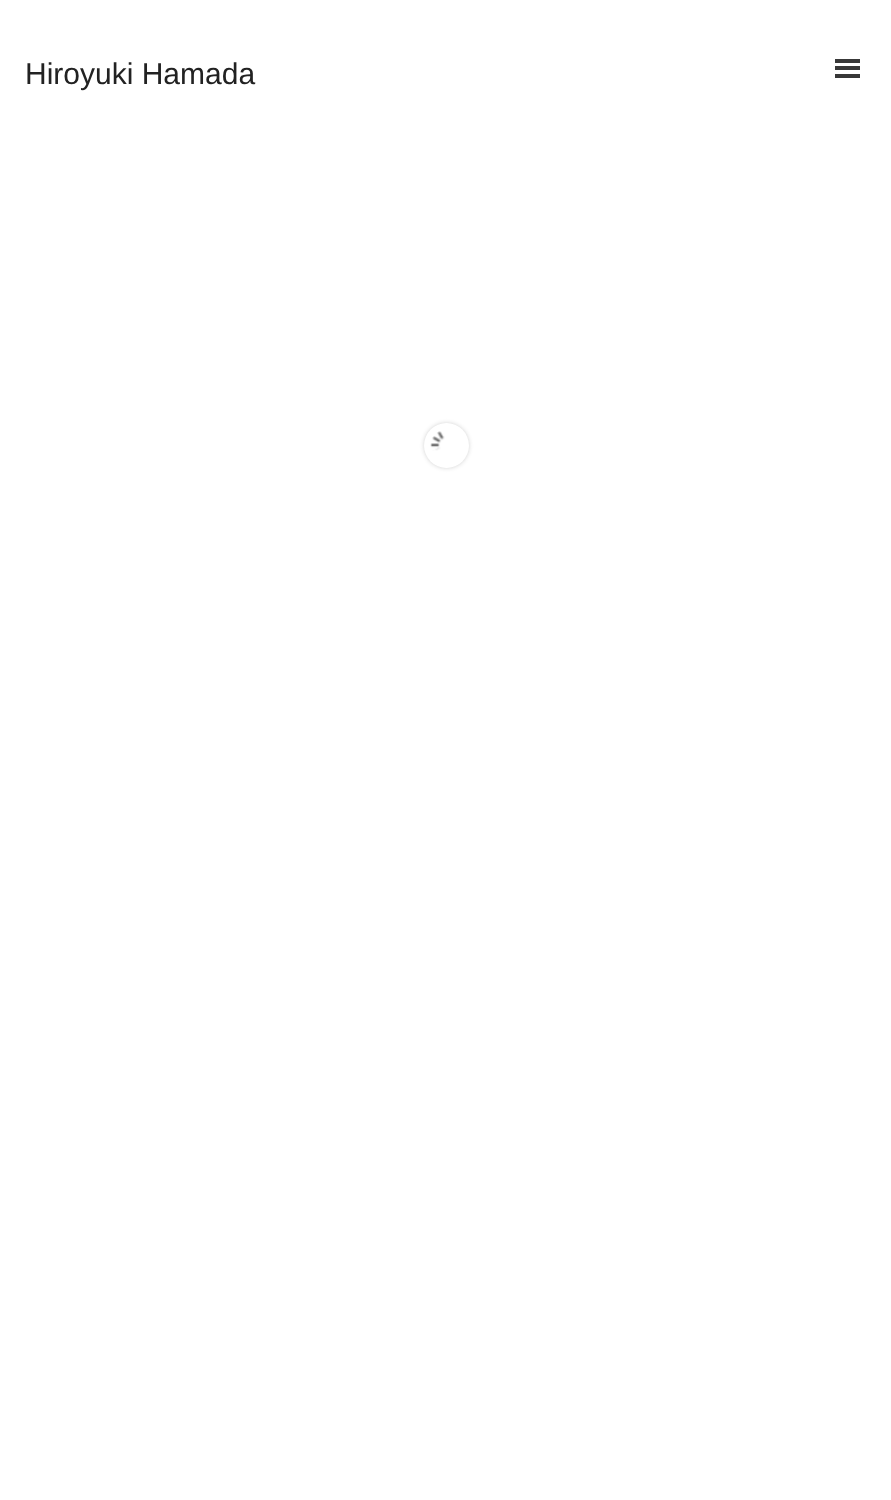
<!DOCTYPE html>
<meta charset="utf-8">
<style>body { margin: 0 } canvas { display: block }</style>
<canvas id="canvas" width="891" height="1500"></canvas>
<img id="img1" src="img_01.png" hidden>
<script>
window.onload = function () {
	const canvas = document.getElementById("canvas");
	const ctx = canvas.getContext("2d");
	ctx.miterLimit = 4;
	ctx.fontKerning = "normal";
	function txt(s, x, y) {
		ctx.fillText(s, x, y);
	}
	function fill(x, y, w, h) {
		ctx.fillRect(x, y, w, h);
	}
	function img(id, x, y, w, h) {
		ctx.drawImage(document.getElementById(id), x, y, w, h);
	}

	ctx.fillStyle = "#FFFFFF";
	fill(0, 0, 891, 1500);
	ctx.fillStyle = "#383838";
	fill(835, 66, 25, 4);
	fill(835, 59, 25, 4);
	fill(835, 74, 25, 4);
	ctx.fillStyle = "rgba(26, 26, 26, 0.2)";
	ctx.filter = "blur(2px)";
	ctx.beginPath();
	ctx.roundRect(424, 423, 45, 45, 22.5);
	ctx.fill();
	ctx.filter = "none";
	ctx.fillStyle = "#FFFFFF";
	ctx.beginPath();
	ctx.arc(446.5, 445.5, 22.5, 0, Math.PI * 2);
	ctx.fill();
	img("img1", 430, 431, 15, 20);
	ctx.font = "30px Liberation Sans";
	ctx.fillStyle = "#222222";
	txt("Hiroyuki Hamada", 25, 84);
};
</script>
